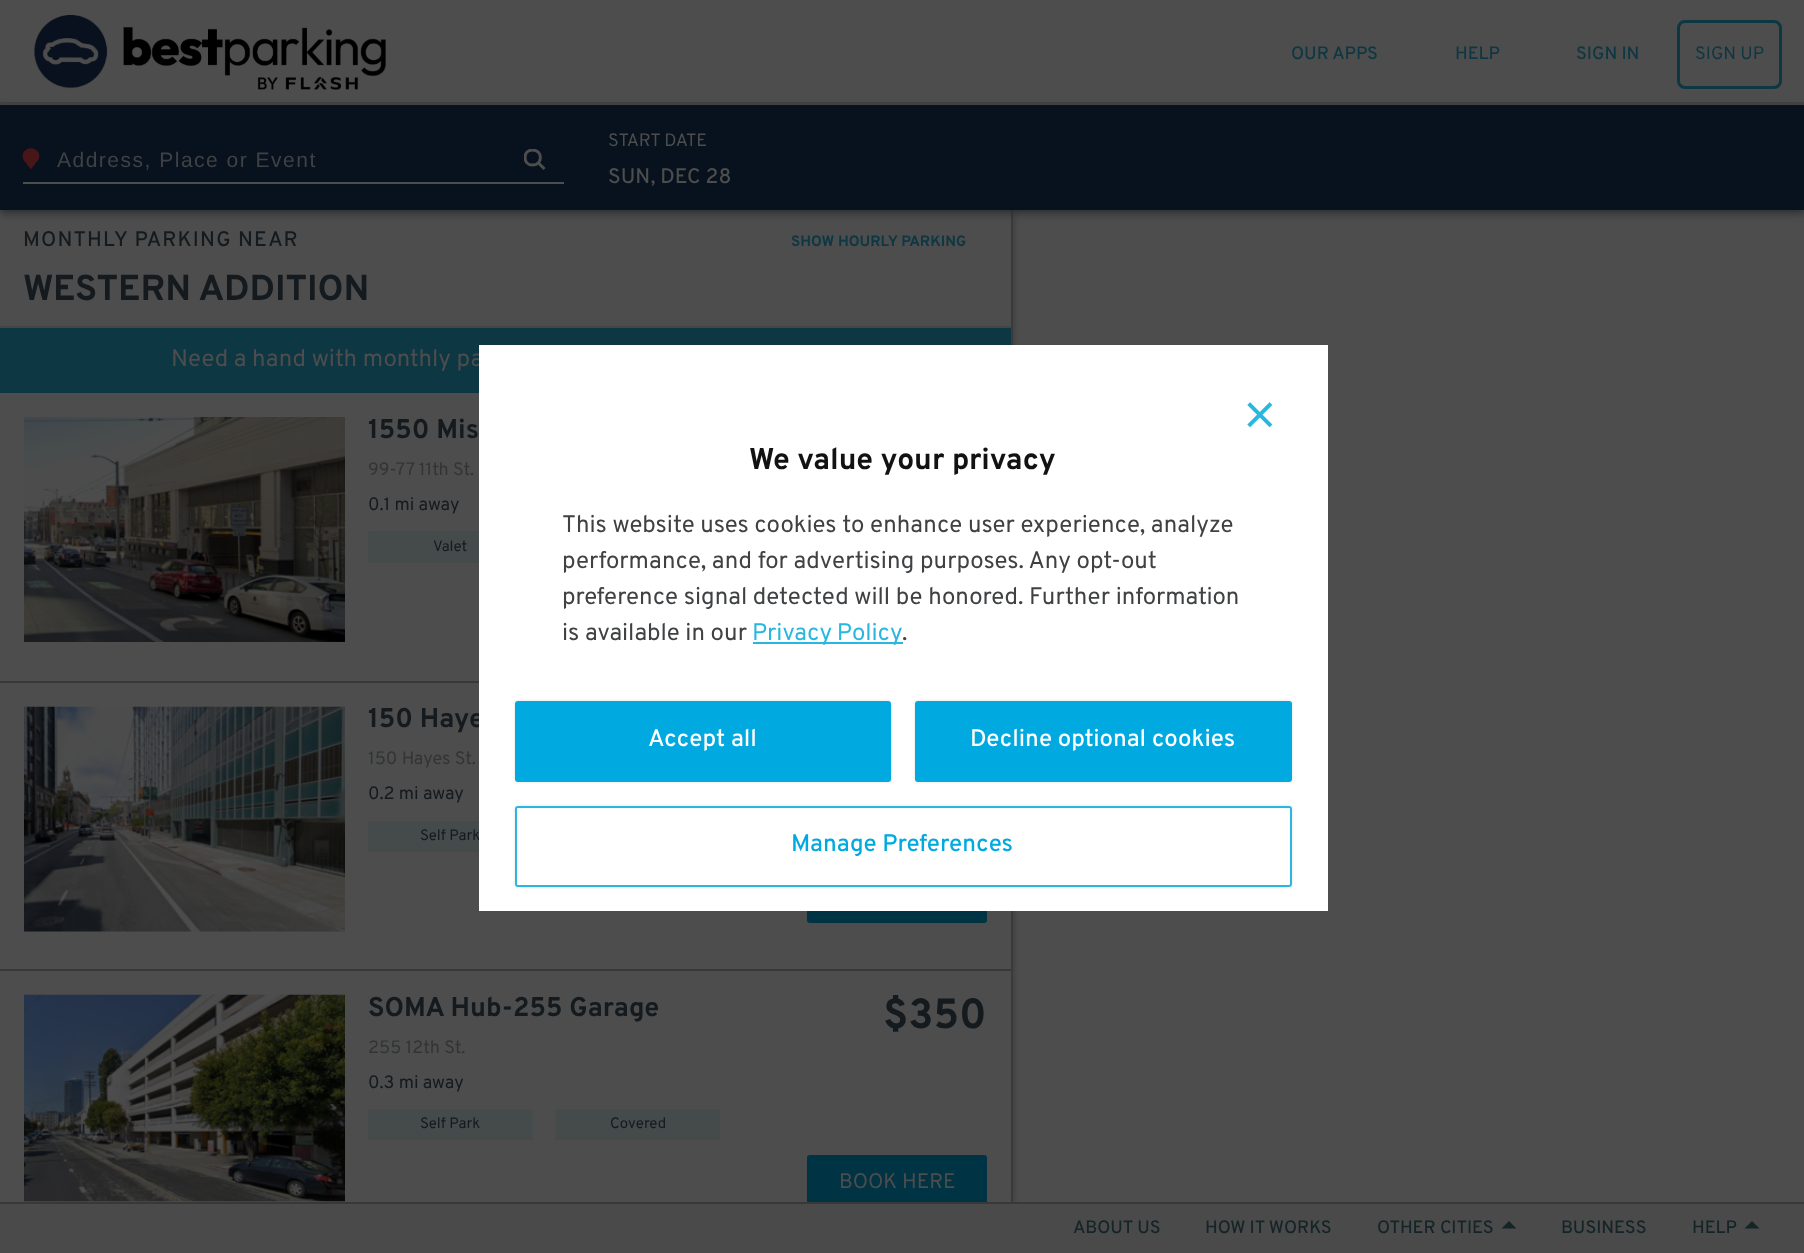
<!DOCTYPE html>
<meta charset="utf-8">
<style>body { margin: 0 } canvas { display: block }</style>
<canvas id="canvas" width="1804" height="1253"></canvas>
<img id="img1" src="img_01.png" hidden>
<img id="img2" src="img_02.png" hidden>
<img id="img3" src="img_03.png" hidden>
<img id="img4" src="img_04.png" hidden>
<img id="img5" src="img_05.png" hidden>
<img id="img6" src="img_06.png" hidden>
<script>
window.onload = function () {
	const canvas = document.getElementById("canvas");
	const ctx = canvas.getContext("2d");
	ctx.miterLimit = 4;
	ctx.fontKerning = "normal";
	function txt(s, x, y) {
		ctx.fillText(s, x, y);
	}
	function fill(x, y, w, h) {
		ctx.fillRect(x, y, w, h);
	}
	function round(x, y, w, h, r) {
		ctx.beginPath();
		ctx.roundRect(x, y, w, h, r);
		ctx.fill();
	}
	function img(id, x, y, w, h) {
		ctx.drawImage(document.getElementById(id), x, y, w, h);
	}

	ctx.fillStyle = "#4D4D4D";
	fill(0, 0, 1804, 1253);
	ctx.save();
	ctx.beginPath();
	ctx.moveTo(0, 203);
	ctx.lineTo(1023, 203);
	ctx.lineTo(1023, 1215);
	ctx.lineTo(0, 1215);
	ctx.closePath();
	ctx.moveTo(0, 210);
	ctx.lineTo(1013, 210);
	ctx.lineTo(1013, 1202);
	ctx.lineTo(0, 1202);
	ctx.closePath();
	ctx.clip("evenodd");
	ctx.fillStyle = "rgba(0, 0, 0, 0.24)";
	ctx.filter = "blur(3px)";
	ctx.beginPath();
	ctx.rect(0, 213, 1013, 992);
	ctx.fill();
	ctx.filter = "none";
	ctx.restore();
	ctx.fillStyle = "rgba(0, 0, 0, 0.24)";
	fill(1011, 210, 2, 992);
	ctx.fillStyle = "#282C2F";
	ctx.filter = "blur(4.5px)";
	ctx.beginPath();
	ctx.rect(0, 108, 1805, 105);
	ctx.fill();
	ctx.filter = "none";
	ctx.fillStyle = "#4D4D4D";
	fill(8, 101, 1789, 1);
	ctx.fillStyle = "#414141";
	fill(0, 102, 1804, 3);
	img("img1", 34, 15, 352, 75);
	ctx.beginPath();
	ctx.roundRect(1678.5, 21.5, 102, 66, 6.5);
	ctx.strokeStyle = "#0D3743";
	ctx.lineWidth = 3;
	ctx.stroke();
	ctx.fillStyle = "#08111E";
	fill(0, 105, 1804, 105);
	ctx.fillStyle = "#4D4D4D";
	fill(23, 182, 16, 2);
	img("img2", 22, 148, 18, 22);
	ctx.save();
	ctx.beginPath();
	ctx.rect(524, 149, 22, 22);
	ctx.clip();
	ctx.beginPath();
	ctx.moveTo(544.5, 169);
	ctx.lineTo(538.5, 163);
	ctx.closePath();
	ctx.moveTo(532.5, 150);
	ctx.bezierCurveTo(543, 150, 543, 165, 532.5, 165);
	ctx.bezierCurveTo(522.5, 165, 522.5, 150, 532.5, 150);
	ctx.closePath();
	ctx.strokeStyle = "#4D4D4D";
	ctx.lineCap = "round";
	ctx.stroke();
	ctx.restore();
	fill(39, 182, 525, 2);
	ctx.fillStyle = "#464545";
	fill(0, 326, 1011, 2);
	ctx.fillStyle = "#0D3743";
	fill(0, 328, 1011, 65);
	ctx.fillStyle = "#383838";
	fill(0, 681, 479, 2);
	img("img3", 24, 417, 321, 225);
	ctx.fillStyle = "#454A4B";
	round(368, 531, 165, 32, 3);
	ctx.fillStyle = "#383838";
	fill(0, 969, 1011, 2);
	img("img4", 24, 706, 321, 226);
	ctx.fillStyle = "#454A4B";
	round(368, 821, 165, 31, 3);
	ctx.fillStyle = "#003343";
	round(807, 867, 180, 56, 3);
	ctx.fillStyle = "#4D4D4D";
	fill(0, 1201, 1011, 1);
	img("img5", 24, 994, 321, 208);
	ctx.fillStyle = "#454A4B";
	round(368, 1109, 165, 31, 3);
	round(555, 1109, 165, 31, 3);
	ctx.fillStyle = "#003343";
	ctx.beginPath();
	ctx.roundRect(807, 1155, 180, 47, [3, 3, 0, 0]);
	ctx.fill();
	ctx.fillStyle = "#4A4A4A";
	fill(0, 1204, 1804, 49);
	ctx.fillStyle = "#383838";
	fill(0, 1202, 1804, 2);
	ctx.fillStyle = "#152427";
	ctx.beginPath();
	ctx.moveTo(1516.5, 1228.5);
	ctx.lineTo(1501.5, 1228.5);
	ctx.lineTo(1509, 1221);
	ctx.closePath();
	ctx.fill();
	ctx.beginPath();
	ctx.moveTo(1759.5, 1228.5);
	ctx.lineTo(1744.5, 1228.5);
	ctx.lineTo(1752, 1221);
	ctx.closePath();
	ctx.fill();
	ctx.font = "500 18px Overpass";
	ctx.fillStyle = "#0D3743";
	txt("OUR APPS", 1291, 59);
	txt("HELP", 1455, 59);
	txt("SIGN IN", 1576, 59);
	ctx.font = "18px Overpass";
	txt("SIGN UP", 1695, 59);
	ctx.letterSpacing = "1.5px";
	ctx.font = "21px Liberation Sans";
	ctx.fillStyle = "#3F4143";
	txt("Address, Place or Event", 57, 167);
	ctx.letterSpacing = "0px";
	ctx.font = "18px Overpass";
	ctx.fillStyle = "#4D4D4D";
	txt("START DATE", 608, 146);
	ctx.font = "500 21px Overpass";
	txt("SUN, DEC 28", 608, 183);
	ctx.letterSpacing = "1.2px";
	ctx.fillStyle = "#141A1E";
	txt("MONTHLY PARKING NEAR", 23, 246);
	ctx.letterSpacing = "0px";
	ctx.font = "bold 15px Overpass";
	ctx.fillStyle = "#0D3743";
	txt("SHOW HOURLY PARKING", 791, 246);
	ctx.font = "bold 36px Overpass";
	ctx.fillStyle = "#141A1E";
	txt("WESTERN ADDITION", 23, 300);
	ctx.font = "24px Overpass";
	ctx.fillStyle = "#4D4D4D";
	txt("Need a hand with monthly pa", 171, 366);
	ctx.font = "bold 27px Overpass";
	ctx.fillStyle = "#141A1E";
	txt("1550 Mis", 368, 438);
	ctx.font = "18px Overpass";
	ctx.fillStyle = "#323436";
	txt("99-77 11th St.", 368, 475);
	ctx.fillStyle = "#141A1E";
	txt("0.1 mi away", 368, 510);
	ctx.font = "15px Overpass";
	txt("Valet", 433, 551);
	ctx.font = "bold 27px Overpass";
	txt("150 Haye", 368, 727);
	ctx.font = "18px Overpass";
	ctx.fillStyle = "#323436";
	txt("150 Hayes St.", 368, 764);
	ctx.fillStyle = "#141A1E";
	txt("0.2 mi away", 368, 799);
	ctx.font = "15px Overpass";
	txt("Self Park", 420, 840);
	ctx.font = "bold 27px Overpass";
	txt("SOMA Hub-255 Garage", 368, 1016);
	ctx.font = "18px Overpass";
	ctx.fillStyle = "#323436";
	txt("255 12th St.", 368, 1053);
	ctx.fillStyle = "#141A1E";
	txt("0.3 mi away", 368, 1088);
	ctx.font = "15px Overpass";
	txt("Self Park", 420, 1128);
	txt("Covered", 610, 1128);
	ctx.font = "bold 42px Overpass";
	txt("$350", 883, 1028);
	ctx.font = "21px Overpass";
	ctx.fillStyle = "#4D4D4D";
	txt("BOOK HERE", 839, 1188);
	ctx.font = "500 18px Overpass";
	ctx.fillStyle = "#152427";
	txt("ABOUT US", 1073, 1233);
	txt("HOW IT WORKS", 1205, 1233);
	txt("OTHER CITIES", 1377, 1233);
	txt("BUSINESS", 1561, 1233);
	txt("HELP", 1692, 1233);
	ctx.fillStyle = "#FFFFFF";
	fill(479, 345, 849, 566);
	img("img6", 1247, 402, 26, 26);
	ctx.font = "bold 30px Overpass";
	ctx.fillStyle = "#121212";
	txt("We value your privacy", 749, 469);
	ctx.font = "24px Overpass";
	ctx.fillStyle = "#3F4143";
	txt("This website uses cookies to enhance user experience, analyze", 562, 532);
	txt("performance, and for advertising purposes. Any opt-out", 562, 568);
	txt("preference signal detected will be honored. Further information", 562, 604);
	txt("is available in our", 562, 640);
	txt(".", 902, 640);
	ctx.fillStyle = "#2AB7DF";
	fill(753, 642, 150, 2);
	ctx.wordSpacing = "-1px";
	txt("Privacy Policy", 752, 640);
	ctx.fillStyle = "rgba(0, 0, 0, 0.12)";
	ctx.filter = "blur(1.5px)";
	ctx.beginPath();
	ctx.roundRect(515, 701, 376, 81, 3);
	ctx.fill();
	ctx.filter = "none";
	ctx.fillStyle = "#00A9E0";
	round(515, 701, 376, 81, 3);
	ctx.wordSpacing = "0px";
	ctx.font = "500 24px Overpass";
	ctx.fillStyle = "#FFFFFF";
	txt("Accept all", 648, 746);
	ctx.fillStyle = "rgba(0, 0, 0, 0.12)";
	ctx.filter = "blur(1.5px)";
	ctx.beginPath();
	ctx.roundRect(915, 701, 377, 81, 3);
	ctx.fill();
	ctx.filter = "none";
	ctx.fillStyle = "#00A9E0";
	round(915, 701, 377, 81, 3);
	ctx.fillStyle = "#FFFFFF";
	txt("Decline optional cookies", 970, 746);
	ctx.save();
	ctx.beginPath();
	ctx.moveTo(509, 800);
	ctx.lineTo(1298, 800);
	ctx.lineTo(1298, 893);
	ctx.lineTo(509, 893);
	ctx.closePath();
	ctx.moveTo(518, 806);
	ctx.lineTo(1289, 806);
	ctx.bezierCurveTo(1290.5, 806, 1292, 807.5, 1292, 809);
	ctx.lineTo(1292, 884);
	ctx.bezierCurveTo(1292, 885.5, 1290.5, 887, 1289, 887);
	ctx.lineTo(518, 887);
	ctx.bezierCurveTo(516.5, 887, 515, 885.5, 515, 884);
	ctx.lineTo(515, 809);
	ctx.bezierCurveTo(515, 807.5, 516.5, 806, 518, 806);
	ctx.closePath();
	ctx.clip("evenodd");
	ctx.fillStyle = "rgba(0, 0, 0, 0.12)";
	ctx.filter = "blur(1.5px)";
	ctx.beginPath();
	ctx.roundRect(515, 806, 777, 81, 3);
	ctx.fill();
	ctx.filter = "none";
	ctx.restore();
	ctx.beginPath();
	ctx.roundRect(516, 807, 775, 79, 2);
	ctx.strokeStyle = "#2AB7DF";
	ctx.lineWidth = 2;
	ctx.stroke();
	ctx.fillStyle = "#00A9E0";
	txt("Manage Preferences", 791, 851);
};
</script>
